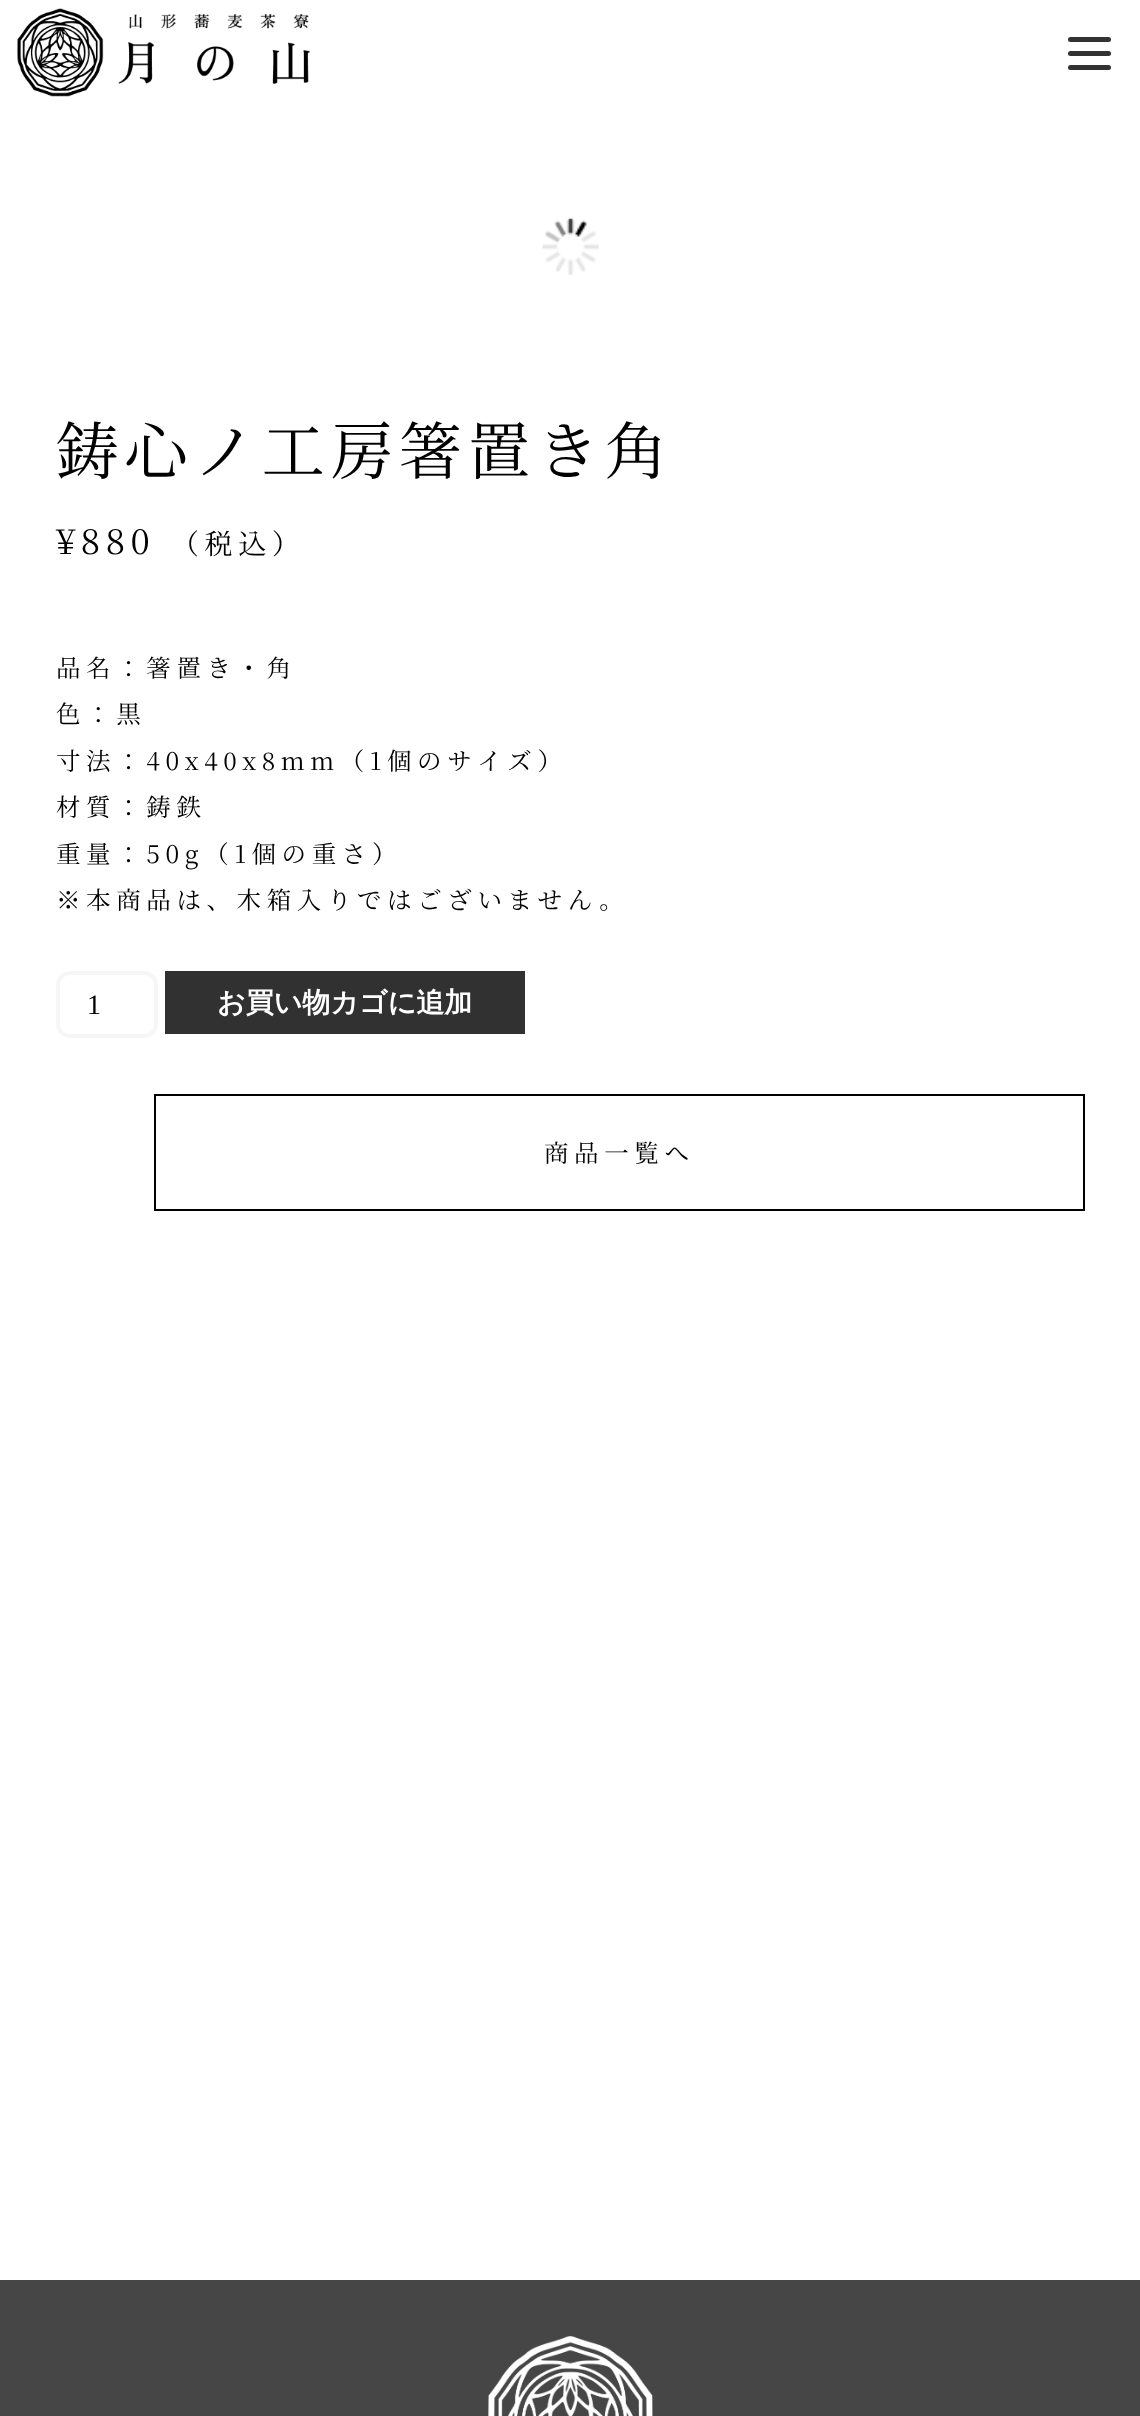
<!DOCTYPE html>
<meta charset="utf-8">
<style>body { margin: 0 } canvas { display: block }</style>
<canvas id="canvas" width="1140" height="2416"></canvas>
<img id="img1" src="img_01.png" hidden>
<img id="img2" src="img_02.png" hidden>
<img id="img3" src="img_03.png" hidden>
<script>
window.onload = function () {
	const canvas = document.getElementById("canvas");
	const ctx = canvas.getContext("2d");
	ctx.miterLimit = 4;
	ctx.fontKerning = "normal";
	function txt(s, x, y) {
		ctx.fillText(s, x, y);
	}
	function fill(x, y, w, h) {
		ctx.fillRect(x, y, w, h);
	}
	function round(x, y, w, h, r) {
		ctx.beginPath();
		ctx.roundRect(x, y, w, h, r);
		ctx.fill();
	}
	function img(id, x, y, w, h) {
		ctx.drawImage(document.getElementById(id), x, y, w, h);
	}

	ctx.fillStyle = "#FFFFFF";
	fill(0, 0, 1140, 2416);
	img("img1", 17, 8, 293, 89);
	ctx.fillStyle = "#333333";
	round(1068, 51, 43, 5, 2.5);
	round(1068, 37, 43, 5, 2.5);
	round(1068, 65, 43, 5, 2.5);
	img("img2", 542, 218, 57, 57);
	ctx.beginPath();
	ctx.roundRect(58, 973, 98, 63, 12);
	ctx.strokeStyle = "#F6F6F6";
	ctx.lineWidth = 4;
	ctx.stroke();
	ctx.fillStyle = "#313131";
	fill(165, 971, 360, 63);
	ctx.strokeStyle = "#000000";
	ctx.lineWidth = 2;
	ctx.strokeRect(155, 1095, 929, 115);
	ctx.fillStyle = "#464646";
	fill(0, 2280, 1140, 136);
	img("img3", 488, 2336, 165, 80);
	ctx.letterSpacing = "5.6px";
	ctx.font = "63px Noto Serif JP";
	ctx.fillStyle = "#000000";
	txt("鋳心ノ工房箸置き角", 56, 474);
	ctx.font = "35px Noto Serif JP";
	txt("¥880", 56, 554);
	ctx.font = "28px Noto Serif JP";
	txt("（税込）", 171, 554);
	ctx.font = "24.5px Noto Serif JP";
	txt("品名：箸置き・角", 56, 677);
	txt("色：黒", 56, 723);
	txt("寸法：40x40x8mm（1個のサイズ）", 56, 770);
	txt("材質：鋳鉄", 56, 816);
	txt("重量：50g（1個の重さ）", 56, 863);
	txt("※本商品は、木箱入りではございません。", 56, 909);
	ctx.letterSpacing = "0px";
	ctx.font = "28px Liberation Serif";
	txt("1", 87, 1014);
	ctx.font = "bold 28px WenQuanYi Zen Hei";
	ctx.fillStyle = "#FFFFFF";
	txt("お買い物カゴに追加", 217, 1012);
	ctx.letterSpacing = "5.6px";
	ctx.font = "24.5px Noto Serif JP";
	ctx.fillStyle = "#000000";
	txt("商品一覧へ", 544, 1162);
};
</script>
